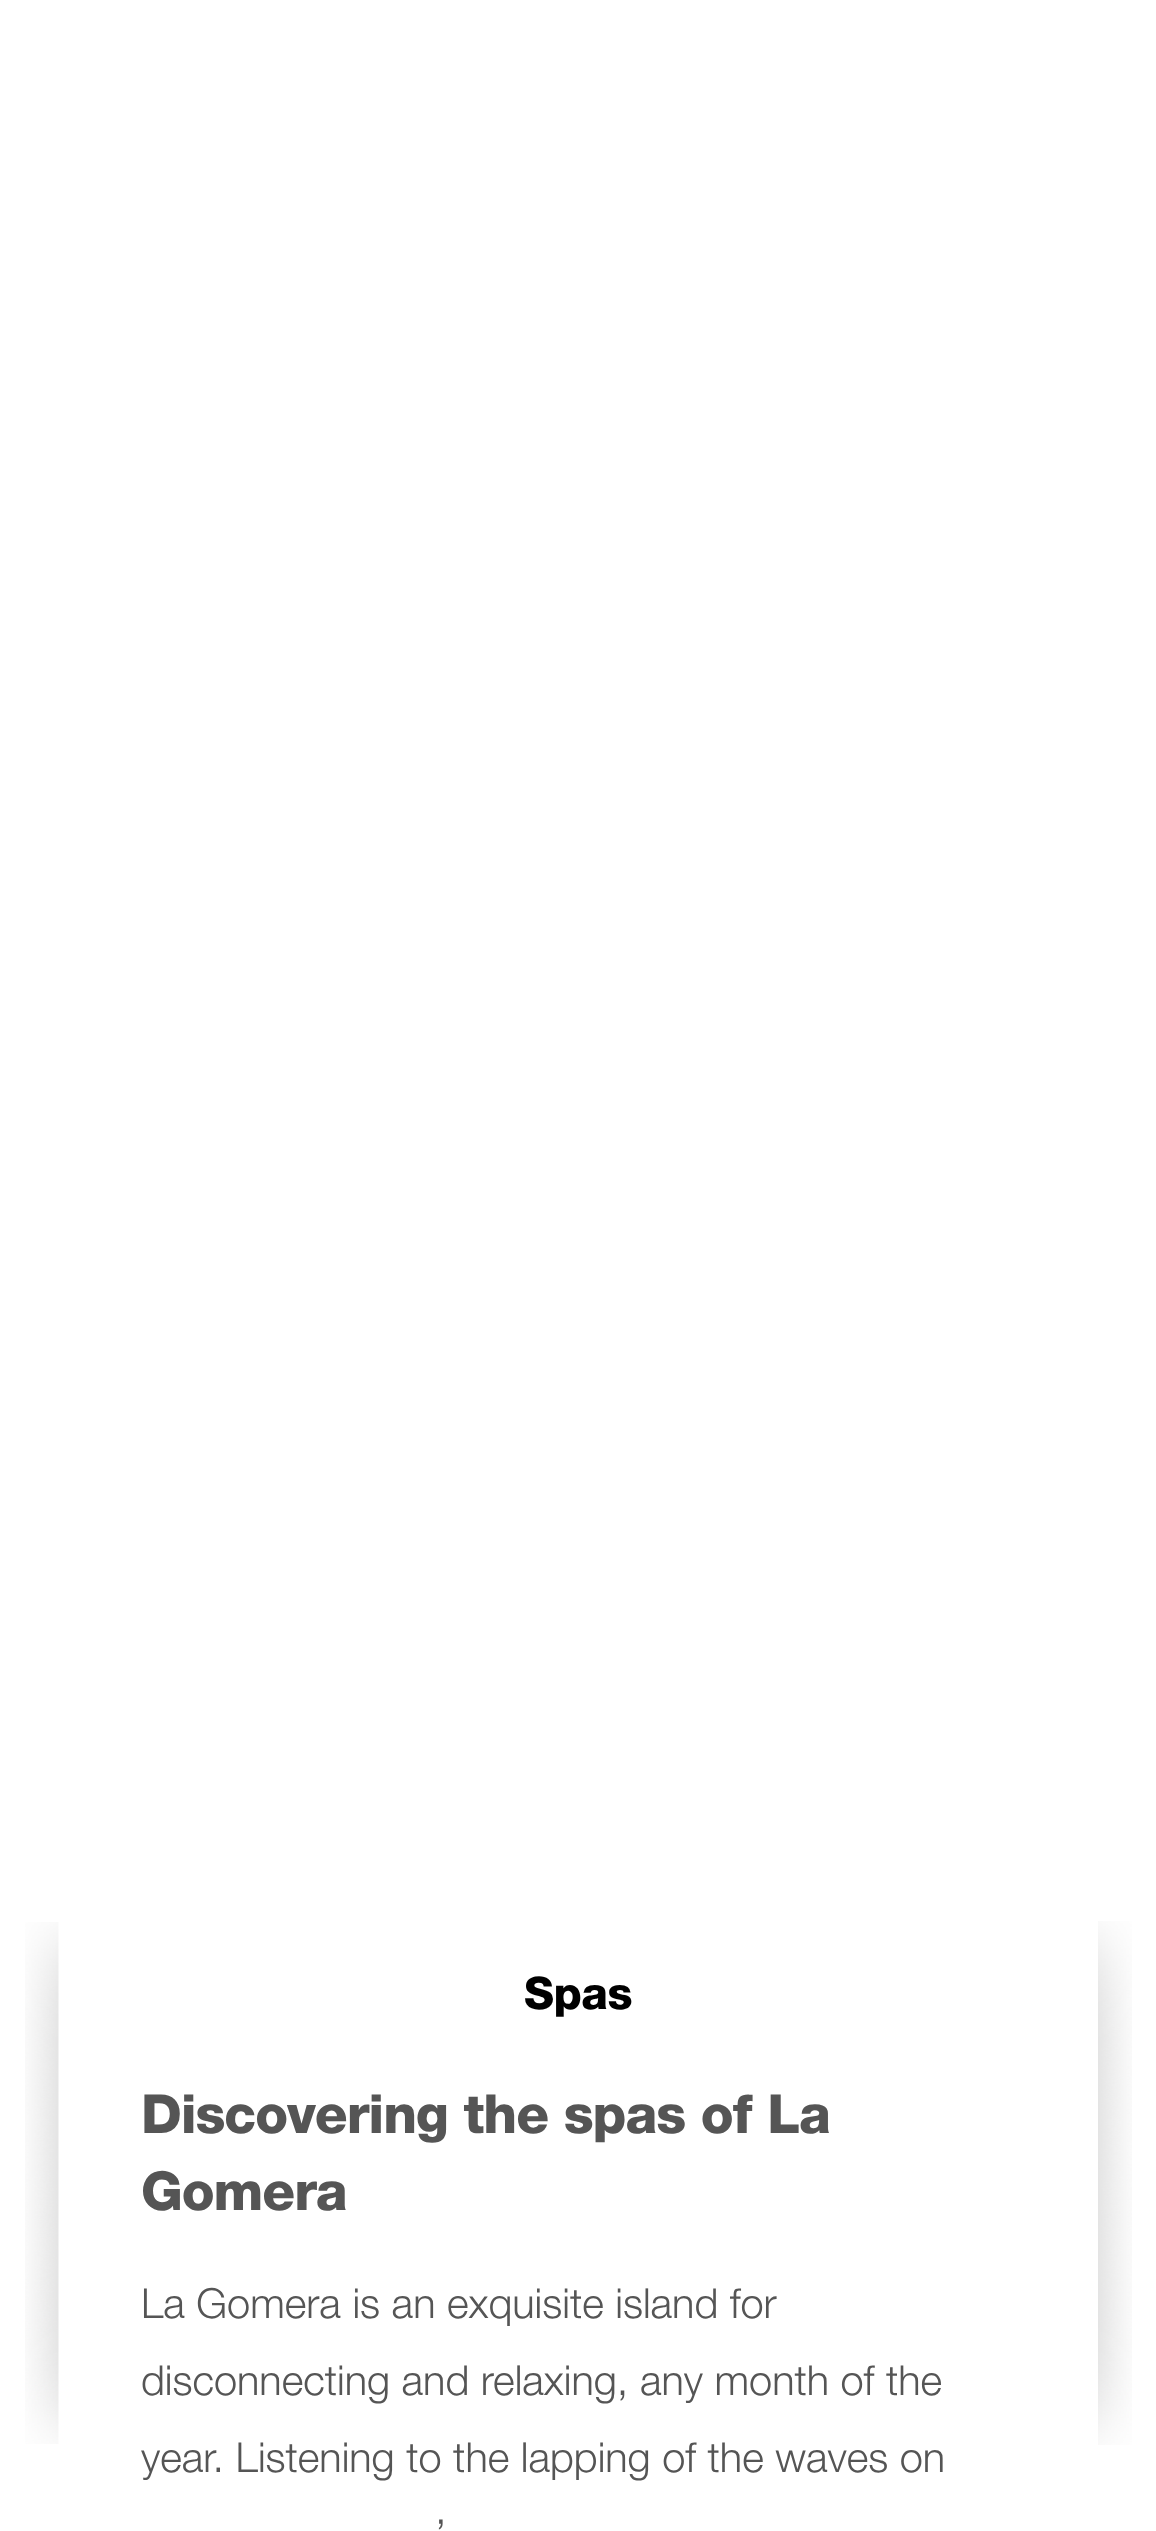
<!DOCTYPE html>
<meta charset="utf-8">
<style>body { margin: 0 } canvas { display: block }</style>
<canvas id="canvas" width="1156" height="2531"></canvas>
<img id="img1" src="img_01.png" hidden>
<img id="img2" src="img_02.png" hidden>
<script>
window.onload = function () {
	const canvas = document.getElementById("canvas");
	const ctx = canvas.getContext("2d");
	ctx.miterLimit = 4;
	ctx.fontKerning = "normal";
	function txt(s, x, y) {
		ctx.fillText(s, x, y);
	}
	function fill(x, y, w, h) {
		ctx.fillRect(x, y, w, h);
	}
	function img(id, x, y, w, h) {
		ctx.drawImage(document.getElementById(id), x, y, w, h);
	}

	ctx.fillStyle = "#FFFFFF";
	fill(0, 0, 1156, 2531);
	img("img1", 25, 1922, 34, 522);
	img("img2", 1098, 1921, 34, 524);
	ctx.letterSpacing = "-0.5px";
	ctx.font = "bold 45px Helvetica Neue";
	ctx.fillStyle = "#000000";
	txt("Spas", 524, 2009);
	ctx.letterSpacing = "-1.1px";
	ctx.font = "bold 53.8px Helvetica Neue";
	ctx.fillStyle = "#555555";
	txt("Discovering the spas of La", 141, 2133);
	txt("Gomera", 141, 2210);
	ctx.letterSpacing = "0px";
	ctx.font = "300 41.5px Helvetica Neue";
	txt("La Gomera is an exquisite island for", 141, 2318);
	txt("disconnecting and relaxing, any month of the", 141, 2395);
	txt("year. Listening to the lapping of the waves on", 141, 2472);
	txt("’", 435, 2549);
};
</script>
